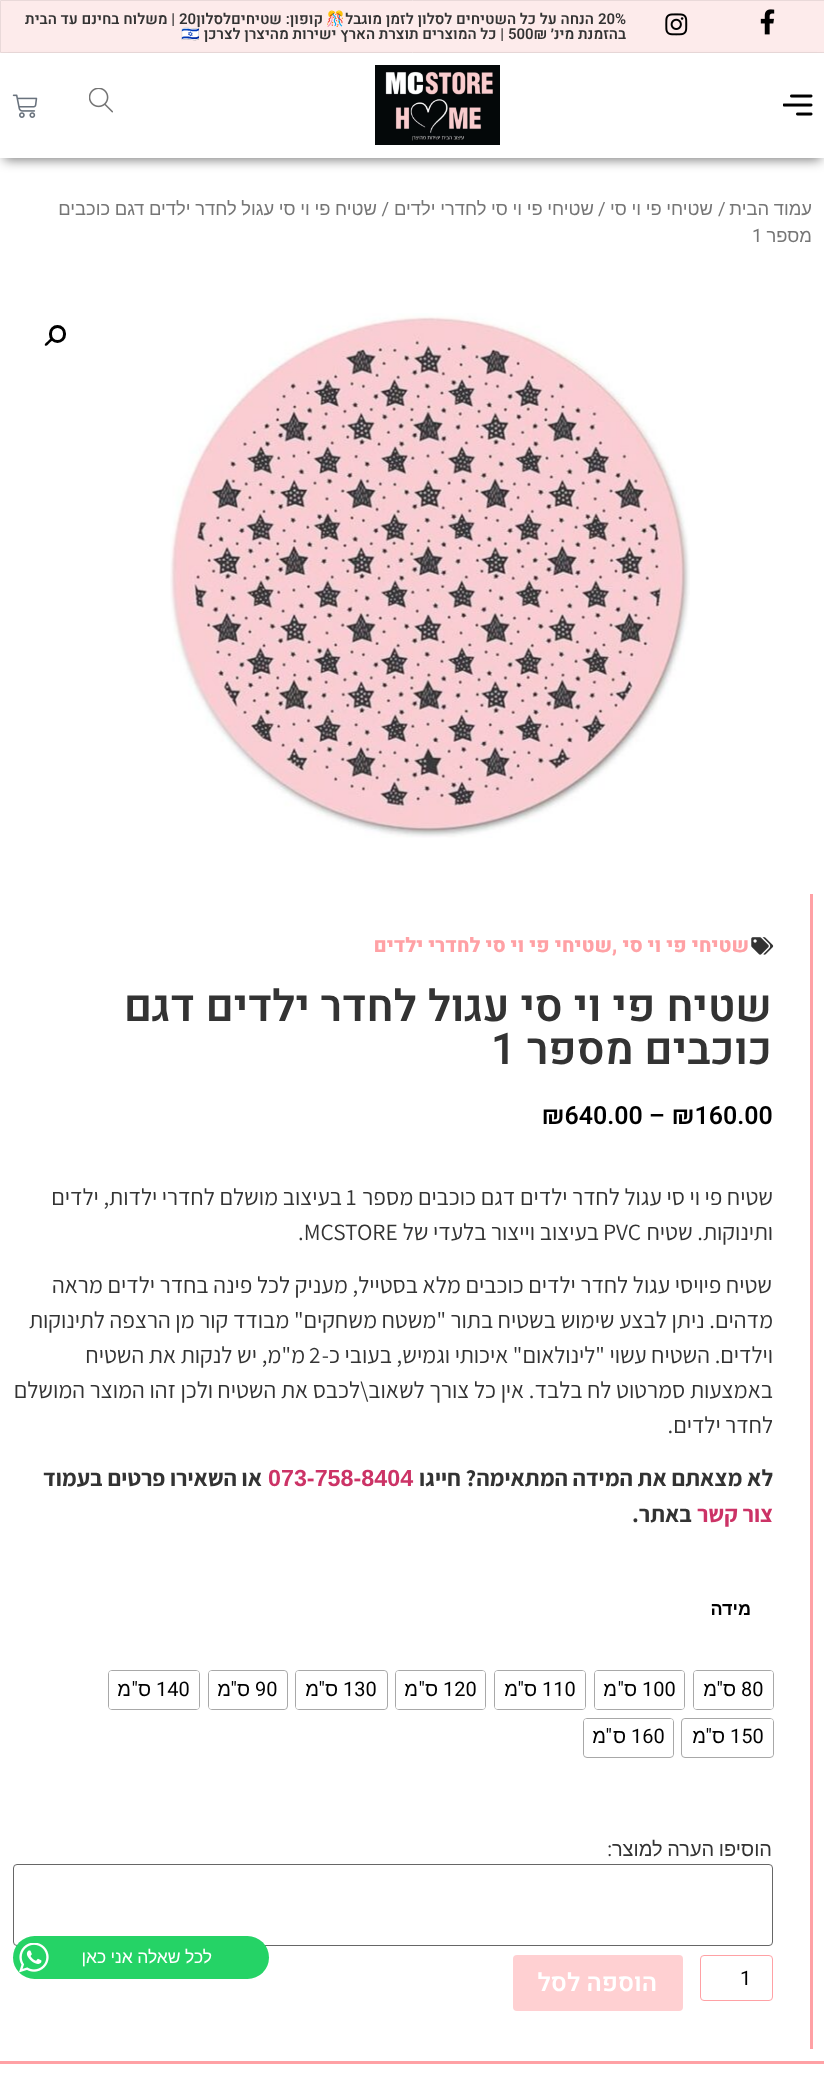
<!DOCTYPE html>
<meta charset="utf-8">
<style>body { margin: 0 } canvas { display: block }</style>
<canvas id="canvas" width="824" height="2078"></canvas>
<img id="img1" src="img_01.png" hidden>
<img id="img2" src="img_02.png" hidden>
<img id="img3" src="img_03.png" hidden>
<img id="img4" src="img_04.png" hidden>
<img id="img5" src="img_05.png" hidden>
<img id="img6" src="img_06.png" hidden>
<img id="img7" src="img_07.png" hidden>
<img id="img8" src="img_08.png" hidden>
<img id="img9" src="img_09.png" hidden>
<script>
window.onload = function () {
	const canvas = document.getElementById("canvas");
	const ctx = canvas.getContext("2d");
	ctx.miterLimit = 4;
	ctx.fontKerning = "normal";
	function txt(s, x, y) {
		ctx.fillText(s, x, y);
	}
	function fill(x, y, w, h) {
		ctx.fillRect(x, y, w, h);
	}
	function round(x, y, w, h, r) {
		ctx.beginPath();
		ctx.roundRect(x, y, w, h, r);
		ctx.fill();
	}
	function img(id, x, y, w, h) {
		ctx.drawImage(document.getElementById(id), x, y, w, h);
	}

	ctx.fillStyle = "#FFFFFF";
	fill(0, 0, 824, 2078);
	ctx.fillStyle = "#FDEBEB";
	ctx.beginPath();
	ctx.rect(0.5, 0.5, 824, 52);
	ctx.fill();
	ctx.strokeStyle = "#E9D9D9";
	ctx.stroke();
	img("img1", 760, 9, 15, 26);
	img("img2", 665, 13, 23, 23);
	ctx.save();
	ctx.beginPath();
	ctx.moveTo(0, 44);
	ctx.lineTo(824, 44);
	ctx.lineTo(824, 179);
	ctx.lineTo(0, 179);
	ctx.closePath();
	ctx.moveTo(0, 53);
	ctx.lineTo(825, 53);
	ctx.lineTo(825, 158);
	ctx.lineTo(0, 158);
	ctx.closePath();
	ctx.clip("evenodd");
	ctx.fillStyle = "rgba(0, 0, 0, 0.5)";
	ctx.filter = "blur(6px)";
	ctx.beginPath();
	ctx.rect(4, 63, 817, 97);
	ctx.fill();
	ctx.filter = "none";
	ctx.restore();
	ctx.fillStyle = "rgba(255, 255, 255, 0.88)";
	fill(0, 157, 824, 1);
	img("img3", 783, 94, 30, 22);
	img("img4", 375, 65, 125, 80);
	img("img5", 89, 88, 24, 25);
	img("img6", 12, 94, 26, 24);
	img("img7", 170, 313, 520, 525);
	ctx.beginPath();
	ctx.roundRect(50.5, 326.5, 14, 15, 7);
	ctx.strokeStyle = "#000000";
	ctx.lineWidth = 3;
	ctx.stroke();
	ctx.fillStyle = "#000000";
	ctx.beginPath();
	ctx.moveTo(52.5, 338.5);
	ctx.bezierCurveTo(53.5, 340, 50.5, 342, 49.5, 343);
	ctx.bezierCurveTo(49, 343.5, 46.5, 347, 45, 345.5);
	ctx.bezierCurveTo(44, 344, 47, 342, 48, 341);
	ctx.bezierCurveTo(48.5, 340.5, 51, 337, 52.5, 338.5);
	ctx.closePath();
	ctx.fill();
	ctx.fillStyle = "#FFA1A5";
	fill(810, 894, 3, 1155);
	img("img8", 751, 937, 23, 18);
	ctx.beginPath();
	ctx.roundRect(693.5, 1670.5, 80, 39, 3.5);
	ctx.strokeStyle = "#A8A8A8";
	ctx.lineWidth = 1;
	ctx.stroke();
	ctx.fillStyle = "#FFFFFF";
	round(694, 1671, 79, 38, 2.5);
	ctx.beginPath();
	ctx.roundRect(594.5, 1670.5, 90, 39, 3.5);
	ctx.stroke();
	round(595, 1671, 89, 38, 2.5);
	ctx.beginPath();
	ctx.roundRect(494.5, 1670.5, 91, 39, 3.5);
	ctx.stroke();
	round(495, 1671, 90, 38, 2.5);
	ctx.beginPath();
	ctx.roundRect(395.5, 1670.5, 90, 39, 3.5);
	ctx.stroke();
	round(396, 1671, 89, 38, 2.5);
	ctx.beginPath();
	ctx.roundRect(295.5, 1670.5, 92, 39, 3.5);
	ctx.stroke();
	round(296, 1671, 90, 38, 2.5);
	ctx.beginPath();
	ctx.roundRect(208.5, 1670.5, 79, 39, 3.5);
	ctx.stroke();
	round(209, 1671, 77, 38, 2.5);
	ctx.beginPath();
	ctx.roundRect(108.5, 1670.5, 91, 39, 3.5);
	ctx.stroke();
	round(109, 1671, 90, 38, 2.5);
	ctx.beginPath();
	ctx.roundRect(681.5, 1718.5, 92, 39, 3.5);
	ctx.stroke();
	round(683, 1719, 90, 37, 2.5);
	ctx.beginPath();
	ctx.roundRect(583.5, 1718.5, 90, 39, 3.5);
	ctx.stroke();
	round(584, 1719, 89, 37, 2.5);
	ctx.beginPath();
	ctx.roundRect(13.5, 1864.5, 759, 81, 3.5);
	ctx.strokeStyle = "#666666";
	ctx.stroke();
	ctx.beginPath();
	ctx.roundRect(700.5, 1955.5, 72, 45, 3.5);
	ctx.strokeStyle = "#FFA1A5";
	ctx.stroke();
	ctx.fillStyle = "#FFD0D2";
	round(513, 1955, 170, 56, 4);
	ctx.fillStyle = "#FFA1A5";
	fill(0, 2061, 824, 3);
	ctx.fillStyle = "#25D366";
	round(13, 1936, 256, 43, 21.5);
	img("img9", 19, 1943, 30, 30);
	ctx.font = "600 15px Heebo";
	ctx.fillStyle = "#333333";
	txt("20%", 598, 24);
	ctx.direction = "rtl";
	txt("הנחה על כל השטיחים לסלון לזמן מוגבל", 594, 24);
	ctx.font = "bold 15px Noto Color Emoji";
	txt("🎊", 345, 24);
	ctx.font = "600 15px Heebo";
	txt("קופון: שטיחיםלסלון", 323, 24);
	ctx.direction = "ltr";
	txt("20", 179, 24);
	ctx.direction = "rtl";
	txt("| משלוח בחינם עד הבית", 175, 24);
	txt("בהזמנת מינ׳", 626, 39);
	ctx.direction = "ltr";
	txt("500₪", 508, 39);
	ctx.direction = "rtl";
	txt("| כל המוצרים תוצרת הארץ ישירות מהיצרן לצרכן", 504, 39);
	ctx.direction = "ltr";
	ctx.font = "bold 15px Noto Color Emoji";
	txt("🇮🇱", 181, 39);
	ctx.wordSpacing = "-0.5px";
	ctx.direction = "rtl";
	ctx.font = "18.4px Liberation Sans";
	ctx.fillStyle = "#767676";
	txt("עמוד הבית", 812, 215);
	ctx.wordSpacing = "0px";
	ctx.direction = "ltr";
	ctx.font = "18.4px Roboto";
	txt("/", 718, 215);
	ctx.wordSpacing = "-0.5px";
	ctx.direction = "rtl";
	ctx.font = "18.4px Liberation Sans";
	txt("שטיחי פי וי סי", 713, 215);
	ctx.wordSpacing = "0px";
	ctx.direction = "ltr";
	ctx.font = "18.4px Roboto";
	txt("/", 598, 215);
	ctx.wordSpacing = "-0.5px";
	ctx.direction = "rtl";
	ctx.font = "18.4px Liberation Sans";
	txt("שטיחי פי וי סי לחדרי ילדים", 594, 215);
	ctx.wordSpacing = "0px";
	ctx.font = "18.4px Roboto";
	txt("/", 389, 215);
	ctx.wordSpacing = "-0.5px";
	ctx.font = "18.4px Liberation Sans";
	txt("שטיח פי וי סי עגול לחדר ילדים דגם כוכבים", 377, 215);
	ctx.wordSpacing = "0px";
	txt("מספר", 812, 242);
	ctx.direction = "ltr";
	ctx.font = "18.4px Roboto";
	txt("1", 752, 242);
	ctx.direction = "rtl";
	ctx.font = "800 20px Heebo";
	ctx.fillStyle = "#FFA1A5";
	txt("שטיחי פי וי סי", 749, 952);
	ctx.direction = "ltr";
	txt(",", 612, 952);
	ctx.direction = "rtl";
	txt("שטיחי פי וי סי לחדרי ילדים", 612, 952);
	ctx.font = "600 43.75px Heebo";
	ctx.fillStyle = "#333333";
	txt("שטיח פי וי סי עגול לחדר ילדים דגם", 772, 1021);
	txt("כוכבים מספר", 772, 1064);
	ctx.direction = "ltr";
	txt("1", 491, 1064);
	ctx.font = "600 25px Heebo";
	ctx.fillStyle = "#000000";
	txt("₪160.00", 672, 1124);
	txt("–", 649, 1124);
	txt("₪640.00", 542, 1124);
	ctx.direction = "rtl";
	ctx.font = "23.3px Assistant";
	ctx.fillStyle = "#333333";
	txt("שטיח פי וי סי עגול לחדר ילדים דגם כוכבים מספר", 773, 1205);
	ctx.direction = "ltr";
	txt("1", 346, 1205);
	ctx.direction = "rtl";
	txt("בעיצוב מושלם לחדרי ילדות, ילדים", 342, 1205);
	txt("ותינוקות. שטיח", 773, 1240);
	ctx.direction = "ltr";
	txt("PVC", 603, 1240);
	ctx.direction = "rtl";
	txt("בעיצוב וייצור בלעדי של", 599, 1240);
	ctx.direction = "ltr";
	txt(".MCSTORE", 298, 1240);
	ctx.direction = "rtl";
	txt("שטיח פיויסי עגול לחדר ילדים כוכבים מלא בסטייל, מעניק לכל פינה בחדר ילדים מראה", 772, 1293);
	txt("מדהים. ניתן לבצע שימוש בשטיח בתור \"משטח משחקים\" מבודד קור מן הרצפה לתינוקות", 773, 1328);
	txt("וילדים. השטיח עשוי \"לינולאום\" איכותי וגמיש, בעובי כ-", 773, 1363);
	ctx.direction = "ltr";
	txt("2", 309, 1363);
	ctx.direction = "rtl";
	txt("מ\"מ, יש לנקות את השטיח", 305, 1363);
	txt("באמצעות סמרטוט לח בלבד. אין כל צורך לשאוב\\לכבס את השטיח ולכן זהו המוצר המושלם", 773, 1398);
	txt("לחדר ילדים.", 773, 1433);
	ctx.font = "bold 23.3px Assistant";
	txt("לא מצאתם את המידה המתאימה? חייגו", 773, 1486);
	ctx.direction = "ltr";
	ctx.font = "bold 23.3px Liberation Sans";
	ctx.fillStyle = "#CC3366";
	txt("073-758-8404", 268, 1486);
	ctx.direction = "rtl";
	ctx.font = "bold 23.3px Assistant";
	ctx.fillStyle = "#333333";
	txt("או השאירו פרטים בעמוד", 262, 1486);
	ctx.fillStyle = "#CC3366";
	txt("צור קשר", 773, 1522);
	ctx.fillStyle = "#333333";
	txt("באתר.", 692, 1522);
	ctx.font = "bold 18px Liberation Sans";
	ctx.fillStyle = "#000000";
	txt("מידה", 751, 1615);
	ctx.direction = "ltr";
	ctx.font = "20px Roboto";
	txt("80", 741, 1696);
	ctx.direction = "rtl";
	ctx.font = "20px Liberation Sans";
	txt("ס", 736, 1696);
	ctx.font = "20px Roboto";
	txt("\"", 723, 1696);
	ctx.font = "20px Liberation Sans";
	txt("מ", 717, 1696);
	ctx.direction = "ltr";
	ctx.font = "20px Roboto";
	txt("100", 642, 1696);
	ctx.direction = "rtl";
	ctx.font = "20px Liberation Sans";
	txt("ס", 637, 1696);
	ctx.font = "20px Roboto";
	txt("\"", 624, 1696);
	ctx.font = "20px Liberation Sans";
	txt("מ", 617, 1696);
	ctx.direction = "ltr";
	ctx.font = "20px Roboto";
	txt("110", 542, 1696);
	ctx.direction = "rtl";
	ctx.font = "20px Liberation Sans";
	txt("ס", 537, 1696);
	ctx.font = "20px Roboto";
	txt("\"", 524, 1696);
	ctx.font = "20px Liberation Sans";
	txt("מ", 518, 1696);
	ctx.direction = "ltr";
	ctx.font = "20px Roboto";
	txt("120", 443, 1696);
	ctx.direction = "rtl";
	ctx.font = "20px Liberation Sans";
	txt("ס", 438, 1696);
	ctx.font = "20px Roboto";
	txt("\"", 425, 1696);
	ctx.font = "20px Liberation Sans";
	txt("מ", 418, 1696);
	ctx.direction = "ltr";
	ctx.font = "20px Roboto";
	txt("130", 343, 1696);
	ctx.direction = "rtl";
	ctx.font = "20px Liberation Sans";
	txt("ס", 338, 1696);
	ctx.font = "20px Roboto";
	txt("\"", 325, 1696);
	ctx.font = "20px Liberation Sans";
	txt("מ", 319, 1696);
	ctx.direction = "ltr";
	ctx.font = "20px Roboto";
	txt("90", 255, 1696);
	ctx.direction = "rtl";
	ctx.font = "20px Liberation Sans";
	txt("ס", 250, 1696);
	ctx.font = "20px Roboto";
	txt("\"", 237, 1696);
	ctx.font = "20px Liberation Sans";
	txt("מ", 231, 1696);
	ctx.direction = "ltr";
	ctx.font = "20px Roboto";
	txt("140", 156, 1696);
	ctx.direction = "rtl";
	ctx.font = "20px Liberation Sans";
	txt("ס", 151, 1696);
	ctx.font = "20px Roboto";
	txt("\"", 138, 1696);
	ctx.font = "20px Liberation Sans";
	txt("מ", 131, 1696);
	ctx.direction = "ltr";
	ctx.font = "20px Roboto";
	txt("150", 730, 1743);
	ctx.direction = "rtl";
	ctx.font = "20px Liberation Sans";
	txt("ס", 725, 1743);
	ctx.font = "20px Roboto";
	txt("\"", 712, 1743);
	ctx.font = "20px Liberation Sans";
	txt("מ", 706, 1743);
	ctx.direction = "ltr";
	ctx.font = "20px Roboto";
	txt("160", 631, 1743);
	ctx.direction = "rtl";
	ctx.font = "20px Liberation Sans";
	txt("ס", 626, 1743);
	ctx.font = "20px Roboto";
	txt("\"", 612, 1743);
	ctx.font = "20px Liberation Sans";
	txt("מ", 606, 1743);
	ctx.wordSpacing = "-1px";
	ctx.fillStyle = "#333333";
	txt("הוסיפו הערה למוצר", 772, 1856);
	ctx.wordSpacing = "0px";
	ctx.font = "20px Roboto";
	txt(":", 612, 1856);
	ctx.direction = "ltr";
	ctx.fillStyle = "#000000";
	txt("1", 740, 1985);
	ctx.direction = "rtl";
	ctx.font = "600 25px Heebo";
	ctx.fillStyle = "#FFFFFF";
	txt("הוספה לסל", 657, 1991);
	ctx.wordSpacing = "-0.5px";
	ctx.font = "17.5px Liberation Sans";
	txt("לכל שאלה אני כאן", 212, 1963);
};
</script>
